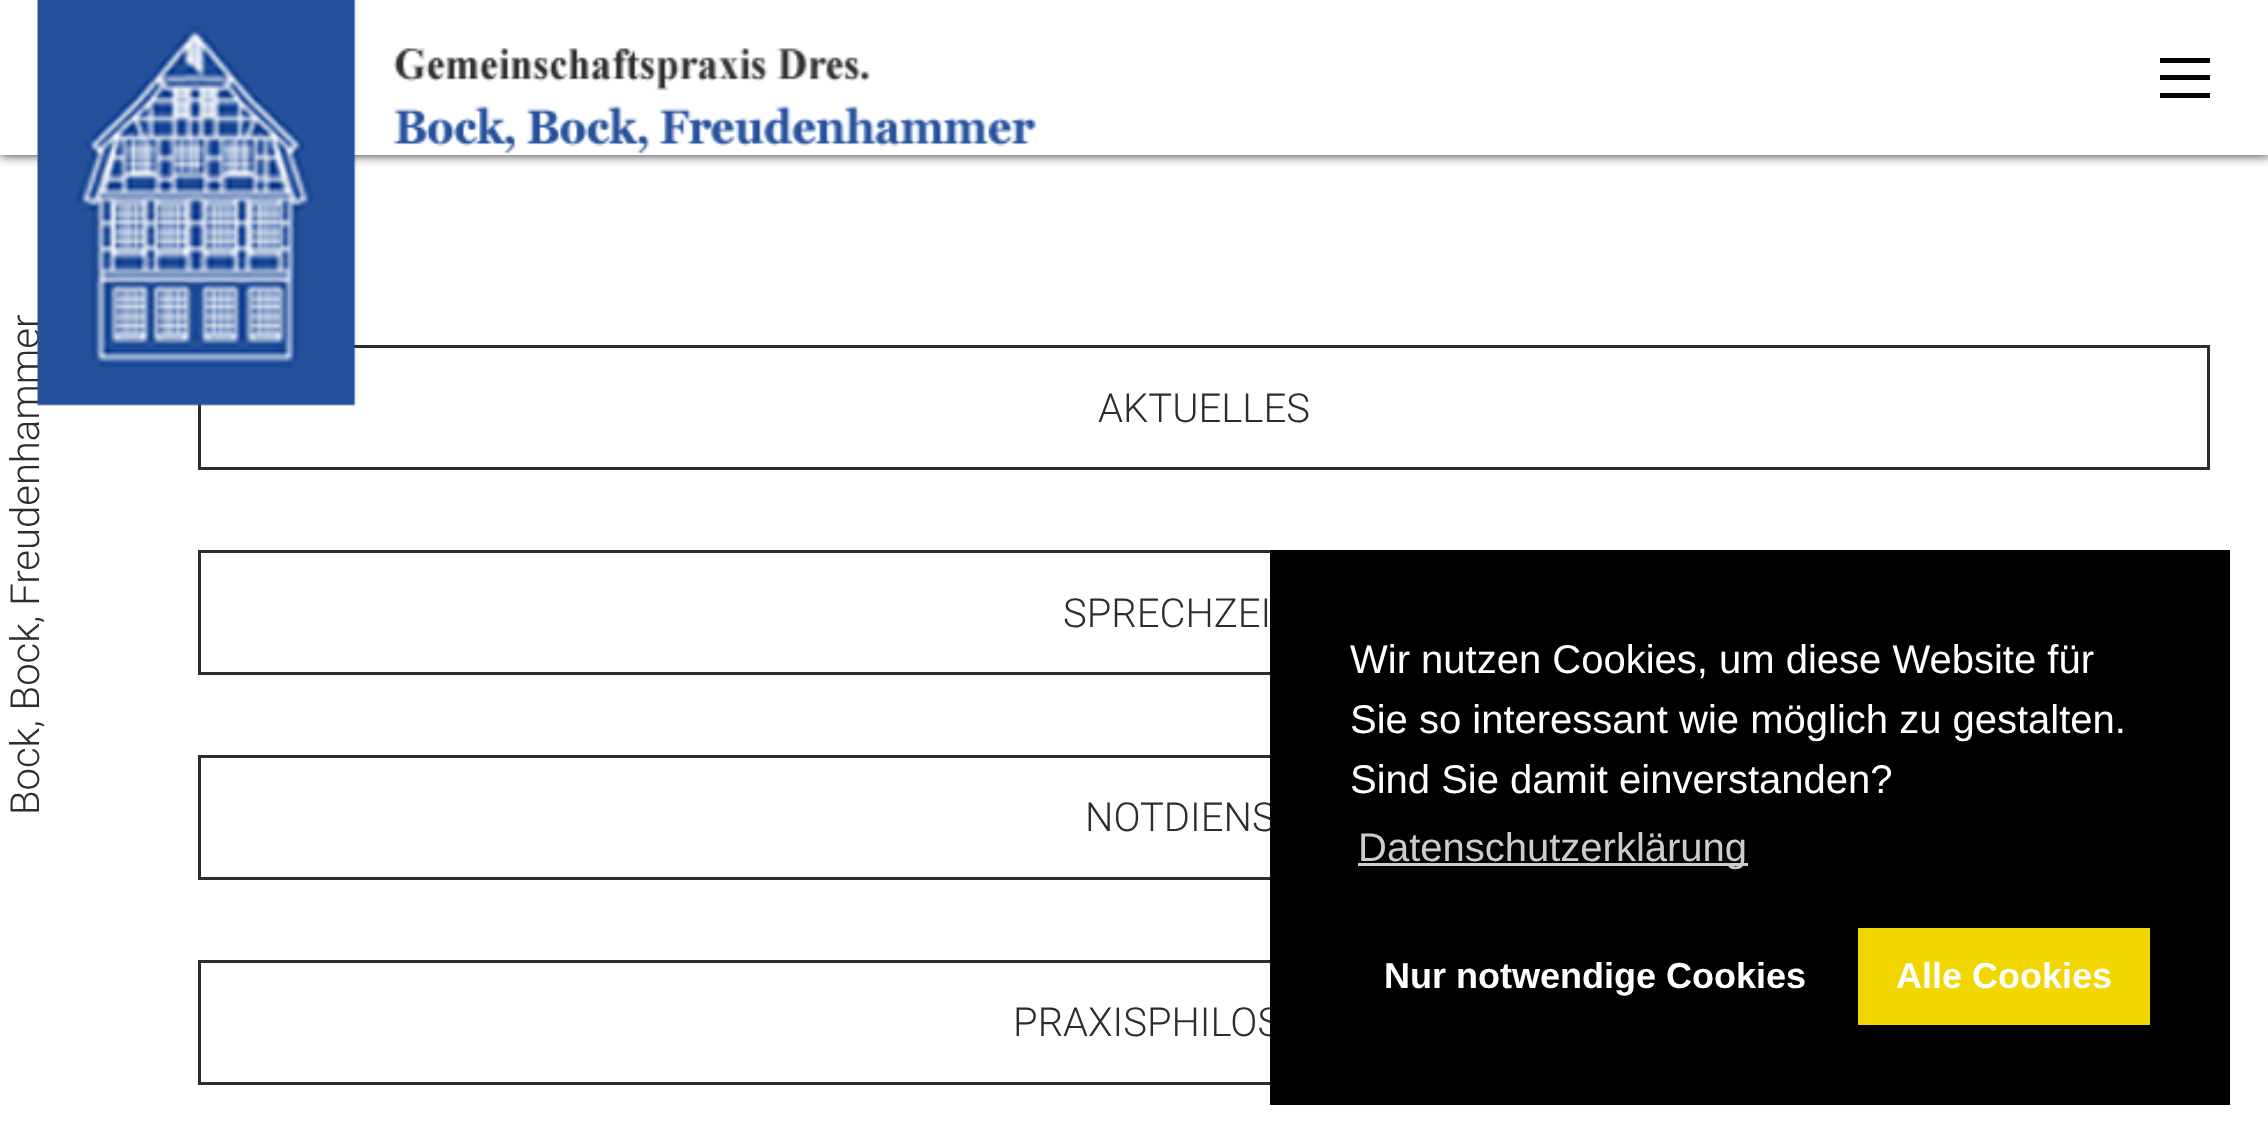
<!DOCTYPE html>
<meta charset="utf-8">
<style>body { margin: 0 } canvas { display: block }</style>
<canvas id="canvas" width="2268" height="1145"></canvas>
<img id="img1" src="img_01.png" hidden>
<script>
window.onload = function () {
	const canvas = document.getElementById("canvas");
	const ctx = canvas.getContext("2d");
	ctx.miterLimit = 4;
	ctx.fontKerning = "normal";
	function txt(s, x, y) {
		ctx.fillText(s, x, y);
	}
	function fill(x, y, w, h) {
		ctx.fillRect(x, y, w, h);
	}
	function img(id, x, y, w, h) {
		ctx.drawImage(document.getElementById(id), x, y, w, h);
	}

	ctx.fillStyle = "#FFFFFF";
	fill(0, 0, 2268, 1145);
	ctx.save();
	ctx.beginPath();
	ctx.rect(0, 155, 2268, 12);
	ctx.clip();
	ctx.fillStyle = "#252525";
	ctx.filter = "blur(6px)";
	ctx.beginPath();
	ctx.rect(0, 0, 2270, 155);
	ctx.fill();
	ctx.filter = "none";
	ctx.restore();
	ctx.fillStyle = "#000000";
	fill(2160, 93, 50, 5);
	fill(2160, 75, 50, 5);
	fill(2160, 58, 50, 5);
	ctx.strokeStyle = "#2D2D2D";
	ctx.lineWidth = 3;
	ctx.strokeRect(199.5, 346.5, 2009, 122);
	ctx.strokeRect(199.5, 551.5, 2009, 122);
	ctx.strokeRect(199.5, 756.5, 2009, 122);
	ctx.strokeRect(199.5, 961.5, 2009, 122);
	ctx.font = "300 40px Roboto";
	ctx.fillStyle = "#2D2D2D";
	ctx.save();
	ctx.translate(39, 815);
	ctx.rotate(-90 * Math.PI / 180);
	ctx.fillText("Bock, Bock, Freudenhammer", 0, 0);
	ctx.restore();
	img("img1", 37, 0, 1001, 406);
	txt("AKTUELLES", 1098, 422);
	txt("SPRECHZEI", 1063, 627);
	txt("NOTDIENS", 1085, 831);
	txt("PRAXISPHILOS", 1013, 1036);
	ctx.fillStyle = "#000000";
	fill(1270, 550, 960, 555);
	ctx.font = "40px Liberation Sans";
	ctx.fillStyle = "#FFFFFF";
	txt("Wir nutzen Cookies, um diese Website für", 1350, 673);
	txt("Sie so interessant wie möglich zu gestalten.", 1350, 733);
	txt("Sind Sie damit einverstanden?", 1350, 793);
	ctx.fillStyle = "#CCCCCC";
	fill(1358, 863, 390, 3);
	txt("Datenschutzerklärung", 1358, 861);
	ctx.font = "bold 36px Liberation Sans";
	ctx.fillStyle = "#FFFFFF";
	txt("Nur notwendige Cookies", 1384, 988);
	ctx.fillStyle = "#F1D600";
	fill(1858, 928, 292, 97);
	ctx.fillStyle = "#FFFFFF";
	txt("Alle Cookies", 1896, 988);
};
</script>
